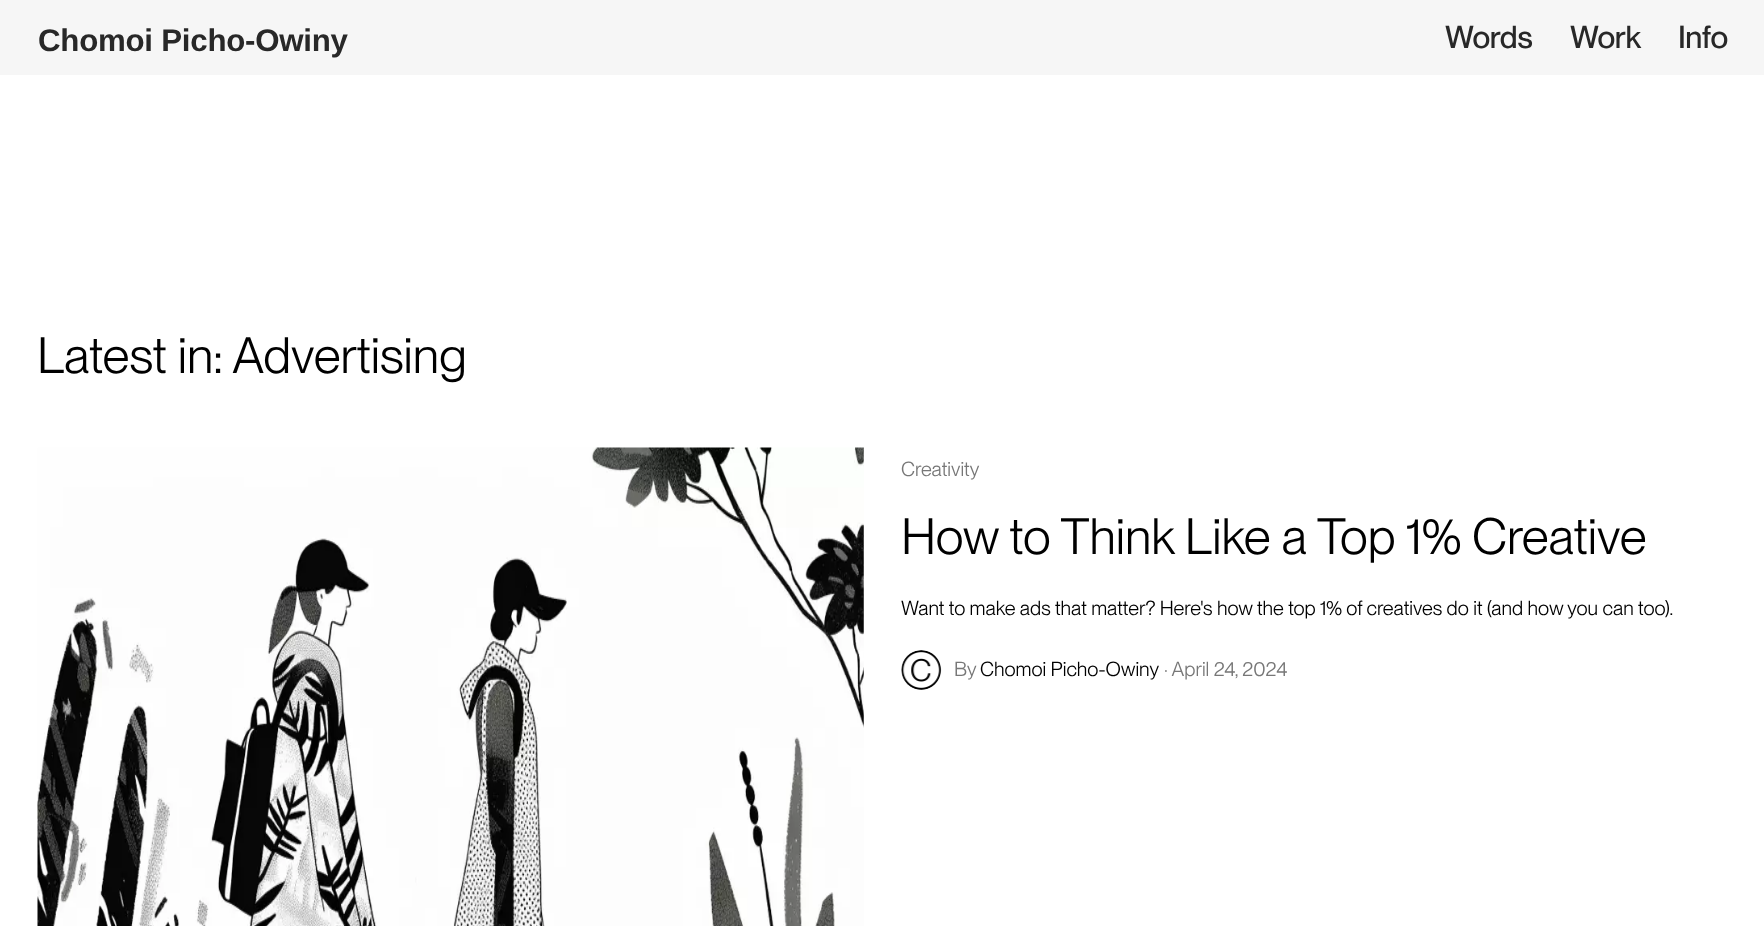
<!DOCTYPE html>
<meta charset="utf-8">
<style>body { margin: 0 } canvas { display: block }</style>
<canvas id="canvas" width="1764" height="926"></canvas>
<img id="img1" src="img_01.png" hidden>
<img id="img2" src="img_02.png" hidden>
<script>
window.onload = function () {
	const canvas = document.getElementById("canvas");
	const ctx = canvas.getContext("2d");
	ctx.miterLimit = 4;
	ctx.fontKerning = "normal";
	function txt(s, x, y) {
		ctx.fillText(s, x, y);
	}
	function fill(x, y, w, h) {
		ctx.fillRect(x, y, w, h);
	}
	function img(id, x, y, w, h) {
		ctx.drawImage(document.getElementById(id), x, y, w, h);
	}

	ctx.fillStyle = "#FFFFFF";
	fill(0, 0, 1764, 926);
	ctx.fillStyle = "#F6F6F6";
	fill(0, 0, 1764, 75);
	img("img1", 37, 447, 827, 479);
	img("img2", 901, 650, 41, 40);
	ctx.letterSpacing = "-0.25px";
	ctx.font = "bold 31.25px Liberation Sans";
	ctx.fillStyle = "#282828";
	txt("Chomoi Picho-Owiny", 38, 51);
	ctx.font = "500 31.25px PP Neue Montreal";
	txt("Words", 1445, 48);
	txt("Work", 1570, 48);
	txt("Info", 1678, 48);
	ctx.letterSpacing = "0px";
	ctx.font = "50px PP Neue Montreal";
	ctx.fillStyle = "#000000";
	txt("Latest in: Advertising", 37, 373);
	ctx.font = "20px PP Neue Montreal";
	ctx.fillStyle = "#777777";
	txt("Creativity", 901, 476);
	ctx.font = "50px PP Neue Montreal";
	ctx.fillStyle = "#000000";
	txt("How to Think Like a Top 1% Creative", 901, 554);
	ctx.font = "20px PP Neue Montreal";
	txt("Want to make ads that matter? Here's how the top 1% of creatives do it (and how you can too).", 901, 615);
	ctx.fillStyle = "#777777";
	txt("By", 954, 676);
	ctx.fillStyle = "#000000";
	txt("Chomoi Picho-Owiny", 980, 676);
	ctx.fillStyle = "#777777";
	txt("· April 24, 2024", 1164, 676);
};
</script>
